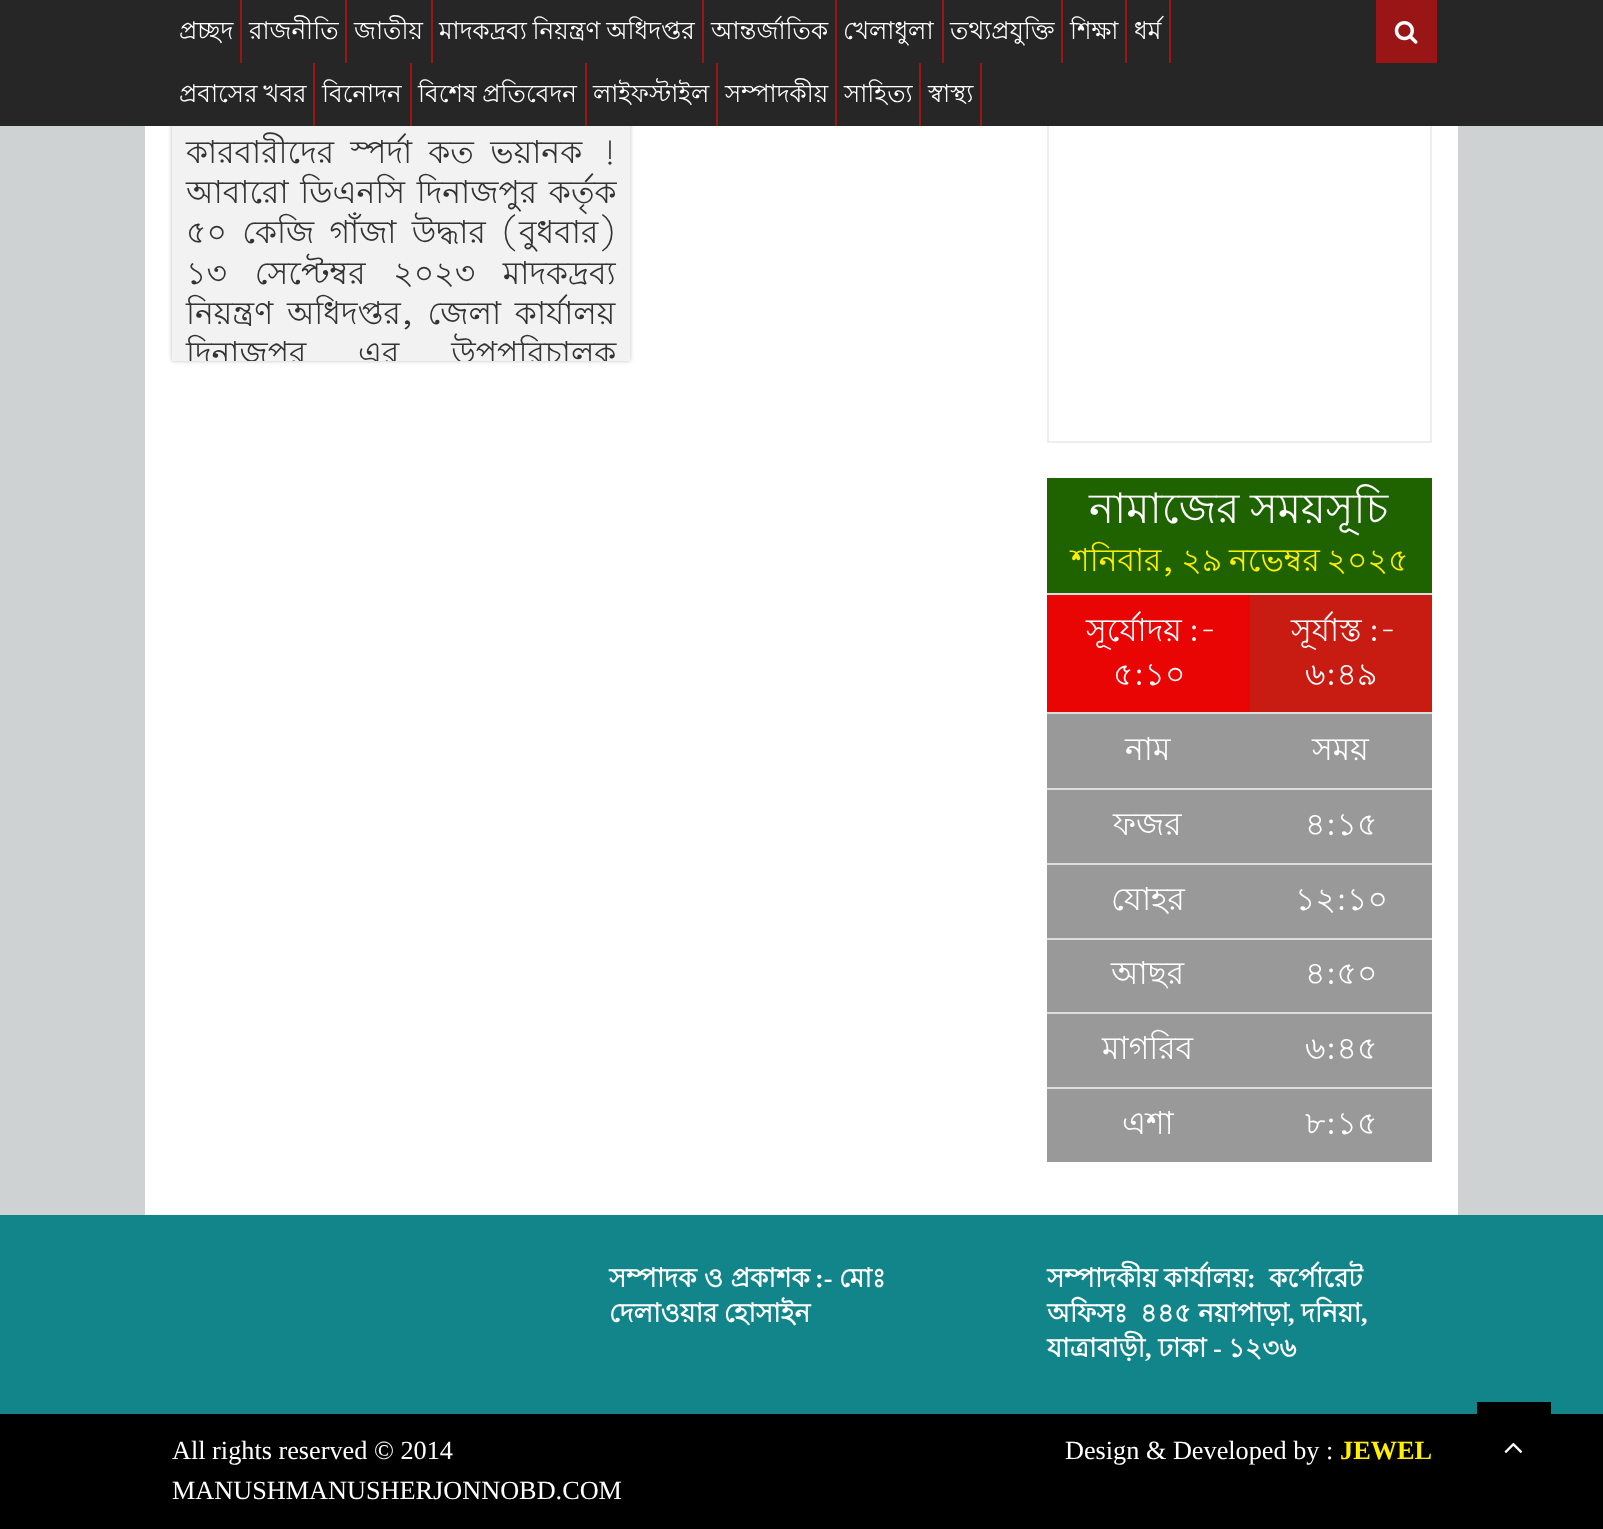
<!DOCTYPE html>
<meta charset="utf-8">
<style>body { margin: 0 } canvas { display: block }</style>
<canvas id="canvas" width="1603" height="1529"></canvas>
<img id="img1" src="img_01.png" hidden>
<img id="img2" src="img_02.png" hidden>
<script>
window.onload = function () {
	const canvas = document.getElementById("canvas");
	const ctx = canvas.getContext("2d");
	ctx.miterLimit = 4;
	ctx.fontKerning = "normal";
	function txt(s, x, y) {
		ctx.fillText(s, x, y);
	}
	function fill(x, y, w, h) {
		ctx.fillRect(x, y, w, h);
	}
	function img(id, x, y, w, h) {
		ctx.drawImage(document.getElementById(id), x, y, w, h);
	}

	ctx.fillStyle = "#CFD2D3";
	fill(0, 0, 1603, 1529);
	ctx.fillStyle = "#FFFFFF";
	fill(145, 126, 1313, 1089);
	ctx.fillStyle = "#C1C0C0";
	ctx.filter = "blur(2px)";
	ctx.beginPath();
	ctx.rect(172, -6, 458, 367);
	ctx.fill();
	ctx.filter = "none";
	ctx.strokeStyle = "#EEEEEE";
	ctx.lineWidth = 2;
	ctx.strokeRect(1048, -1, 383, 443);
	ctx.fillStyle = "#262626";
	fill(0, 0, 1603, 126);
	ctx.fillStyle = "#9A1515";
	fill(240, 0, 2, 63);
	fill(345, 0, 2, 63);
	fill(431, 0, 2, 63);
	fill(702, 0, 2, 63);
	fill(835, 0, 2, 126);
	fill(942, 0, 2, 63);
	fill(1061, 0, 2, 63);
	fill(1125, 0, 2, 63);
	fill(1169, 0, 2, 63);
	fill(313, 63, 2, 63);
	fill(410, 63, 2, 63);
	fill(585, 63, 2, 63);
	fill(716, 63, 2, 63);
	fill(919, 63, 2, 63);
	fill(980, 63, 2, 63);
	fill(1376, 0, 61, 63);
	img("img1", 1394, 21, 24, 23);
	ctx.fillStyle = "#F2F2F2";
	fill(172, 126, 458, 235);
	ctx.fillStyle = "#1F6200";
	fill(1047, 478, 385, 115);
	ctx.fillStyle = "#EA0505";
	fill(1047, 595, 203, 117);
	ctx.fillStyle = "#C81C13";
	fill(1250, 595, 182, 117);
	ctx.fillStyle = "#DDDDDD";
	fill(1047, 593, 385, 2);
	fill(1047, 712, 385, 2);
	ctx.fillStyle = "#999999";
	fill(1047, 714, 385, 448);
	ctx.fillStyle = "#DDDDDD";
	fill(1047, 788, 385, 2);
	fill(1047, 863, 385, 2);
	fill(1047, 938, 385, 2);
	fill(1047, 1012, 385, 2);
	fill(1047, 1087, 385, 2);
	ctx.fillStyle = "#11858A";
	fill(0, 1215, 1603, 199);
	ctx.fillStyle = "#000000";
	fill(0, 1414, 1603, 115);
	fill(1477, 1402, 74, 12);
	img("img2", 1504, 1442, 19, 11);
	ctx.font = "24.5px Lohit Bengali";
	ctx.fillStyle = "#FFFFFF";
	txt("প্রচ্ছদ", 179, 39);
	txt("রাজনীতি", 249, 39);
	txt("জাতীয়", 354, 39);
	ctx.wordSpacing = "-1px";
	txt("মাদকদ্রব্য নিয়ন্ত্রণ অধিদপ্তর", 439, 39);
	ctx.wordSpacing = "0px";
	txt("আন্তর্জাতিক", 711, 39);
	txt("খেলাধুলা", 843, 39);
	txt("তথ্যপ্রযুক্তি", 950, 39);
	txt("শিক্ষা", 1070, 39);
	txt("ধর্ম", 1134, 39);
	ctx.wordSpacing = "-1px";
	txt("প্রবাসের খবর", 179, 102);
	ctx.wordSpacing = "0px";
	txt("বিনোদন", 322, 102);
	ctx.wordSpacing = "-1px";
	txt("বিশেষ প্রতিবেদন", 418, 102);
	ctx.wordSpacing = "0px";
	txt("লাইফস্টাইল", 593, 102);
	txt("সম্পাদকীয়", 725, 102);
	txt("সাহিত্য", 844, 102);
	txt("স্বাস্থ্য", 928, 102);
	ctx.wordSpacing = "7.5px";
	ctx.font = "31.5px Lohit Bengali";
	ctx.fillStyle = "#333333";
	txt("কারবারীদের স্পর্দা কত ভয়ানক !", 186, 163);
	ctx.wordSpacing = "3px";
	txt("আবারো ডিএনসি দিনাজপুর কর্তৃক", 186, 203);
	ctx.wordSpacing = "6.5px";
	txt("৫০ কেজি গাঁজা উদ্ধার (বুধবার)", 186, 243);
	ctx.wordSpacing = "19px";
	txt("১৩ সেপ্টেম্বর ২০২৩ মাদকদ্রব্য", 186, 284);
	ctx.wordSpacing = "5px";
	txt("নিয়ন্ত্রণ অধিদপ্তর, জেলা কার্যালয়", 186, 324);
	ctx.save();
	ctx.beginPath();
	ctx.rect(172, 0, 458, 361);
	ctx.clip();
	ctx.wordSpacing = "43px";
	txt("দিনাজপুর এর উপপরিচালক", 186, 364);
	ctx.restore();
	ctx.wordSpacing = "-1px";
	ctx.font = "42px Lohit Bengali";
	ctx.fillStyle = "#FFFFFF";
	txt("নামাজের সময়সূচি", 1089, 523);
	ctx.wordSpacing = "-2px";
	ctx.font = "31.5px Lohit Bengali";
	ctx.fillStyle = "#FFEF00";
	txt("শনিবার, ২৯ নভেম্বর ২০২৫", 1071, 571);
	ctx.fillStyle = "#FFFFFF";
	txt("সূর্যোদয় :-", 1086, 641);
	ctx.wordSpacing = "0px";
	txt("৫:১০", 1113, 685);
	ctx.wordSpacing = "-2px";
	txt("সূর্যাস্ত :-", 1291, 641);
	ctx.wordSpacing = "0px";
	txt("৬:৪৯", 1305, 685);
	txt("নাম", 1125, 760);
	txt("সময়", 1312, 760);
	txt("ফজর", 1113, 835);
	txt("৪:১৫", 1305, 835);
	txt("যোহর", 1111, 910);
	txt("১২:১০", 1295, 910);
	txt("আছর", 1111, 984);
	txt("৪:৫০", 1305, 984);
	txt("মাগরিব", 1102, 1059);
	txt("৬:৪৫", 1305, 1059);
	txt("এশা", 1122, 1134);
	txt("৮:১৫", 1305, 1134);
	ctx.font = "bold 26.25px Lohit Bengali";
	txt("সম্পাদক ও প্রকাশক", 609, 1287);
	ctx.font = "bold 26.25px Liberation Serif";
	txt(":-", 815, 1287);
	ctx.font = "bold 26.25px Lohit Bengali";
	txt("মোঃ", 839, 1287);
	ctx.wordSpacing = "-1px";
	txt("দেলাওয়ার হোসাইন", 609, 1322);
	txt("সম্পাদকীয় কার্যালয়", 1047, 1287);
	ctx.wordSpacing = "0px";
	ctx.font = "bold 26.25px Liberation Serif";
	txt(":", 1247, 1287);
	ctx.font = "bold 26.25px Lohit Bengali";
	txt("কর্পোরেট", 1269, 1287);
	txt("অফিসঃ", 1047, 1322);
	txt("৪৪৫ নয়াপাড়া", 1140, 1322);
	ctx.font = "bold 26.25px Liberation Serif";
	txt(",", 1288, 1322);
	ctx.font = "bold 26.25px Lohit Bengali";
	txt("দনিয়া", 1301, 1322);
	ctx.font = "bold 26.25px Liberation Serif";
	txt(",", 1361, 1322);
	ctx.font = "bold 26.25px Lohit Bengali";
	txt("যাত্রাবাড়ী", 1047, 1357);
	txt("ঢাকা", 1158, 1357);
	ctx.font = "bold 26.25px Liberation Serif";
	txt("-", 1213, 1357);
	ctx.font = "bold 26.25px Lohit Bengali";
	txt("১২৩৬", 1228, 1357);
	ctx.font = "bold 26.25px Liberation Serif";
	txt(",", 1145, 1357);
	ctx.font = "26.25px Liberation Serif";
	txt("All rights reserved © 2014", 172, 1459);
	txt("MANUSHMANUSHERJONNOBD.COM", 172, 1499);
	txt("Design & Developed by :", 1065, 1459);
	ctx.font = "bold 26.25px Liberation Serif";
	ctx.fillStyle = "#FFEF00";
	txt("JEWEL", 1340, 1459);
};
</script>
